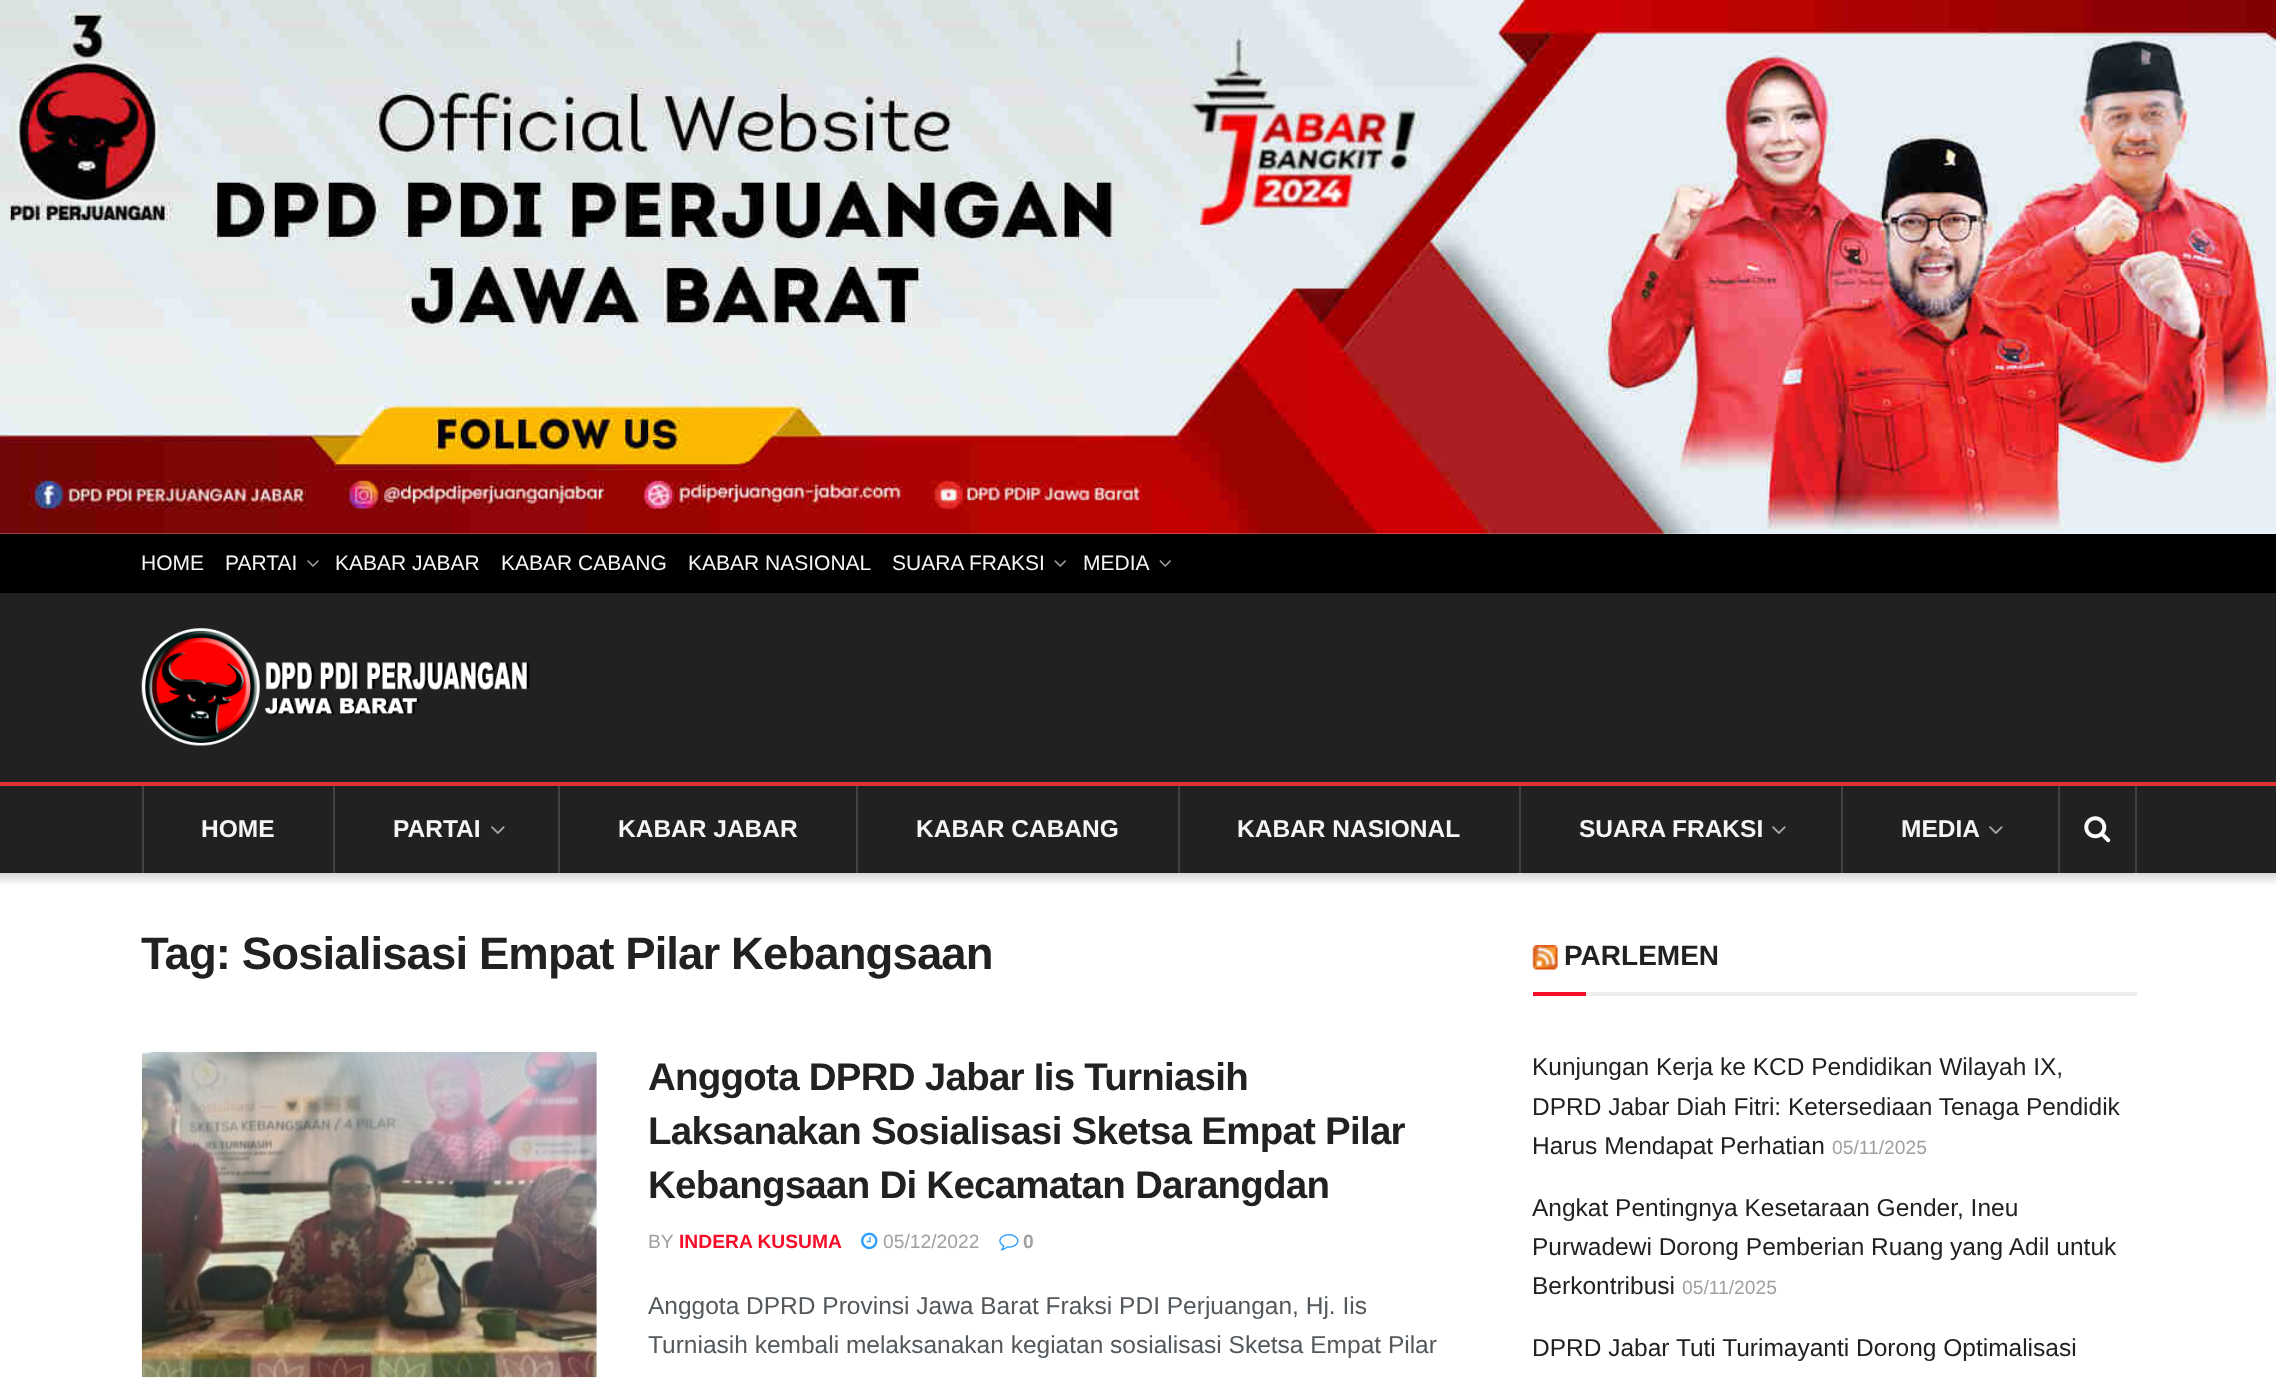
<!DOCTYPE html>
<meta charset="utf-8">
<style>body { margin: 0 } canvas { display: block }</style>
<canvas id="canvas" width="2276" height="1383"></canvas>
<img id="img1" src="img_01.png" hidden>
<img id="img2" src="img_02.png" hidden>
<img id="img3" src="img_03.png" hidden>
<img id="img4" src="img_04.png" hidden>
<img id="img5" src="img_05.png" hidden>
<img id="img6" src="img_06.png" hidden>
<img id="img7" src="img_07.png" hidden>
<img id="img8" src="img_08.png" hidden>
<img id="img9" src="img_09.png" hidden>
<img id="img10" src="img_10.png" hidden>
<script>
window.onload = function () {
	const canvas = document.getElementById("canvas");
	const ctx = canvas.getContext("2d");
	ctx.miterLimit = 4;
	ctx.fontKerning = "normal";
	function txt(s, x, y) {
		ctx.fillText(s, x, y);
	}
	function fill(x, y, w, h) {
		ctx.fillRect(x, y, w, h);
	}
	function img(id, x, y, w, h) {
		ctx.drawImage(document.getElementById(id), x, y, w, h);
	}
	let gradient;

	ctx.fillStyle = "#FFFFFF";
	fill(0, 0, 2276, 1383);
	img("img1", 0, 0, 2276, 534);
	ctx.fillStyle = "#000000";
	fill(0, 534, 2276, 59);
	img("img2", 307, 560, 12, 7);
	img("img3", 1054, 560, 12, 7);
	img("img3", 1159, 560, 12, 7);
	ctx.fillStyle = "#212121";
	fill(0, 593, 2276, 189);
	img("img4", 141, 628, 389, 118);
	fill(0, 786, 2276, 87);
	ctx.fillStyle = "#DD3333";
	fill(0, 782, 2276, 4);
	ctx.fillStyle = "#424242";
	fill(2058, 786, 2, 87);
	fill(142, 786, 2, 87);
	fill(333, 786, 2, 87);
	fill(558, 786, 2, 87);
	img("img5", 491, 826, 14, 8);
	fill(856, 786, 2, 87);
	fill(1178, 786, 2, 87);
	fill(1519, 786, 2, 87);
	fill(1841, 786, 2, 87);
	img("img5", 1772, 826, 14, 8);
	img("img5", 1989, 826, 14, 8);
	fill(2135, 786, 2, 87);
	img("img6", 2084, 816, 27, 27);
	gradient = ctx.createLinearGradient(1138, 873, 1138, 886);
	gradient.addColorStop(0, "#D9D9D9");
	gradient.addColorStop(1, "#FFFFFF");
	ctx.fillStyle = gradient;
	fill(0, 873, 2276, 12);
	ctx.fillStyle = "#F7F7F7";
	fill(596, 1052, 1, 325);
	img("img7", 141, 1051, 456, 327);
	img("img8", 861, 1232, 17, 18);
	img("img9", 999, 1234, 20, 17);
	ctx.fillStyle = "#EEEEEE";
	fill(1586, 992, 551, 4);
	img("img10", 1532, 945, 26, 25);
	ctx.fillStyle = "#F70D28";
	fill(1533, 992, 53, 4);
	ctx.font = "21px Liberation Sans";
	ctx.fillStyle = "#F5F5F5";
	txt("HOME", 141, 570);
	txt("PARTAI", 225, 570);
	txt("KABAR JABAR", 335, 570);
	txt("KABAR CABANG", 501, 570);
	txt("KABAR NASIONAL", 688, 570);
	txt("SUARA FRAKSI", 892, 570);
	txt("MEDIA", 1083, 570);
	ctx.font = "bold 24.5px Liberation Sans";
	txt("HOME", 201, 837);
	txt("PARTAI", 393, 837);
	txt("KABAR JABAR", 618, 837);
	txt("KABAR CABANG", 916, 837);
	txt("KABAR NASIONAL", 1237, 837);
	txt("SUARA FRAKSI", 1579, 837);
	txt("MEDIA", 1901, 837);
	ctx.letterSpacing = "-0.9px";
	ctx.font = "bold 45.5px Liberation Sans";
	ctx.fillStyle = "#212121";
	txt("Tag: Sosialisasi Empat Pilar Kebangsaan", 141, 969);
	ctx.letterSpacing = "-0.75px";
	ctx.font = "bold 38.5px Liberation Sans";
	txt("Anggota DPRD Jabar Iis Turniasih", 648, 1090);
	txt("Laksanakan Sosialisasi Sketsa Empat Pilar", 648, 1144);
	txt("Kebangsaan Di Kecamatan Darangdan", 648, 1198);
	ctx.letterSpacing = "0px";
	ctx.font = "19.25px Liberation Sans";
	ctx.fillStyle = "#A0A0A0";
	txt("BY", 648, 1248);
	ctx.font = "bold 19.25px Liberation Sans";
	ctx.fillStyle = "#F70D28";
	txt("INDERA KUSUMA", 679, 1248);
	ctx.font = "19.25px Liberation Sans";
	ctx.fillStyle = "#A0A0A0";
	txt("05/12/2022", 883, 1248);
	ctx.font = "bold 19.25px Liberation Sans";
	txt("0", 1023, 1248);
	ctx.font = "24.5px Liberation Sans";
	ctx.fillStyle = "#53585C";
	txt("Anggota DPRD Provinsi Jawa Barat Fraksi PDI Perjuangan, Hj. Iis", 648, 1314);
	txt("Turniasih kembali melaksanakan kegiatan sosialisasi Sketsa Empat Pilar", 648, 1353);
	ctx.font = "bold 28px Liberation Sans";
	ctx.fillStyle = "#212121";
	txt("PARLEMEN", 1564, 965);
	ctx.font = "24.5px Liberation Sans";
	txt("Kunjungan Kerja ke KCD Pendidikan Wilayah IX,", 1532, 1075);
	txt("DPRD Jabar Diah Fitri: Ketersediaan Tenaga Pendidik", 1532, 1115);
	txt("Harus Mendapat Perhatian", 1532, 1154);
	ctx.font = "19.25px Liberation Sans";
	ctx.fillStyle = "#A0A0A0";
	txt("05/11/2025", 1832, 1154);
	ctx.font = "24.5px Liberation Sans";
	ctx.fillStyle = "#212121";
	txt("Angkat Pentingnya Kesetaraan Gender, Ineu", 1532, 1216);
	txt("Purwadewi Dorong Pemberian Ruang yang Adil untuk", 1532, 1255);
	txt("Berkontribusi", 1532, 1294);
	ctx.font = "19.25px Liberation Sans";
	ctx.fillStyle = "#A0A0A0";
	txt("05/11/2025", 1682, 1294);
	ctx.font = "24.5px Liberation Sans";
	ctx.fillStyle = "#212121";
	txt("DPRD Jabar Tuti Turimayanti Dorong Optimalisasi", 1532, 1356);
};
</script>
